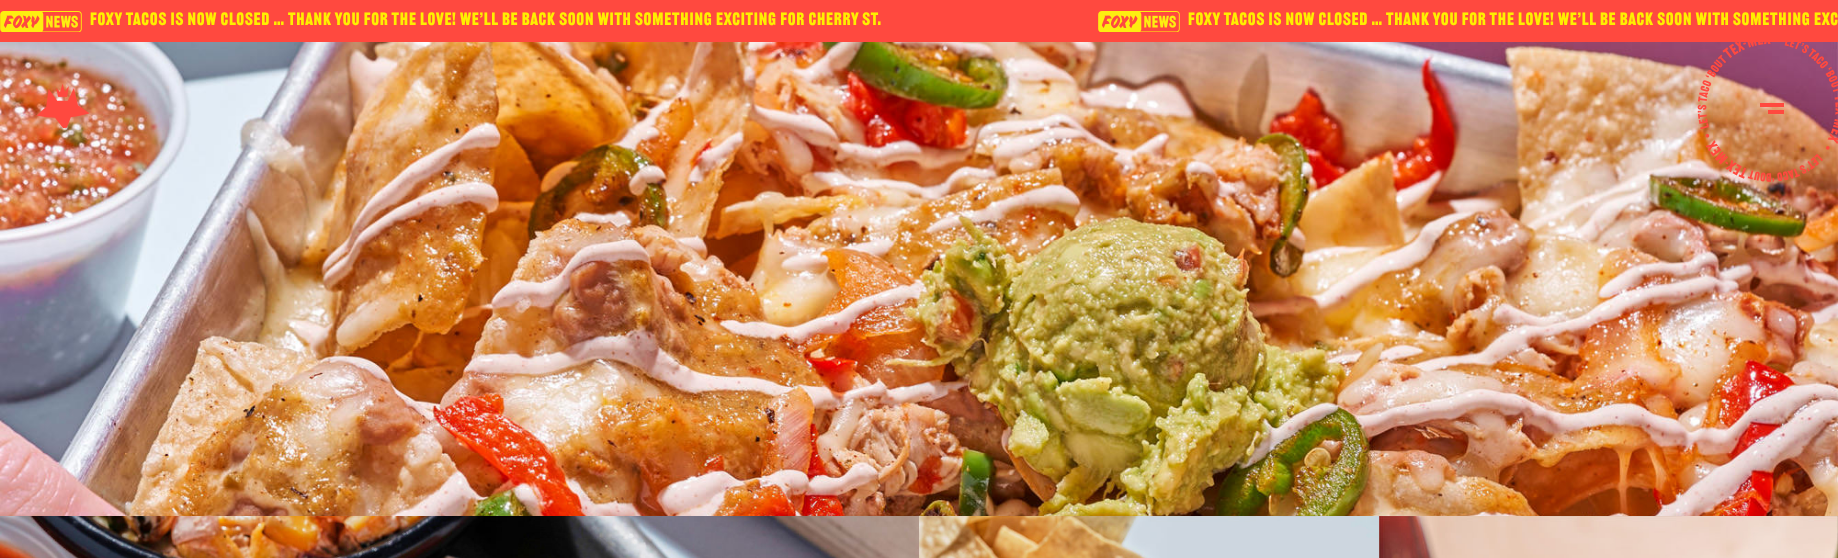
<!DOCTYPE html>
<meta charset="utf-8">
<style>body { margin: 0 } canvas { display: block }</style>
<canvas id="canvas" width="1838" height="558"></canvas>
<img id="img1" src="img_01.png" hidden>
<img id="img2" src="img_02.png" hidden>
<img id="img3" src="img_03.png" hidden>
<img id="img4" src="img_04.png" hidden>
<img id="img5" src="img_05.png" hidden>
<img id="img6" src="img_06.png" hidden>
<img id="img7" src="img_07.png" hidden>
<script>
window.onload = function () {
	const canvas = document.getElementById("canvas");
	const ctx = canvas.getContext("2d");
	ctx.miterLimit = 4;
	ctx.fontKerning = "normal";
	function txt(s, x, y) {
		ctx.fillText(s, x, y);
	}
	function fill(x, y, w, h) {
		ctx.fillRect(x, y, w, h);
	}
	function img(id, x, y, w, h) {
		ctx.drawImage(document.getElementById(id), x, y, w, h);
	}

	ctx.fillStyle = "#FFFFFF";
	fill(0, 0, 1838, 558);
	ctx.fillStyle = "#FF493F";
	fill(0, 0, 1838, 42);
	img("img1", 0, 11, 82, 21);
	img("img1", 1098, 11, 82, 21);
	img("img2", 0, 42, 1838, 474);
	img("img3", 0, 516, 919, 42);
	img("img4", 919, 516, 460, 42);
	img("img5", 1379, 516, 459, 42);
	img("img6", 36, 84, 54, 44);
	img("img7", 1697, 42, 141, 140);
	fill(1760, 103, 24, 4);
	fill(1768, 110, 16, 4);
	ctx.letterSpacing = "0.75px";
	ctx.font = "17.6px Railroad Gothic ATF";
	ctx.fillStyle = "#FFEF00";
	txt("Foxy Tacos is now closed … thank you for the love! We’ll be back soon with something exciting for Cherry St.", 90, 25);
	txt("Foxy Tacos is now closed … thank you for the love! We’ll be back soon with something exc", 1188, 25);
};
</script>
